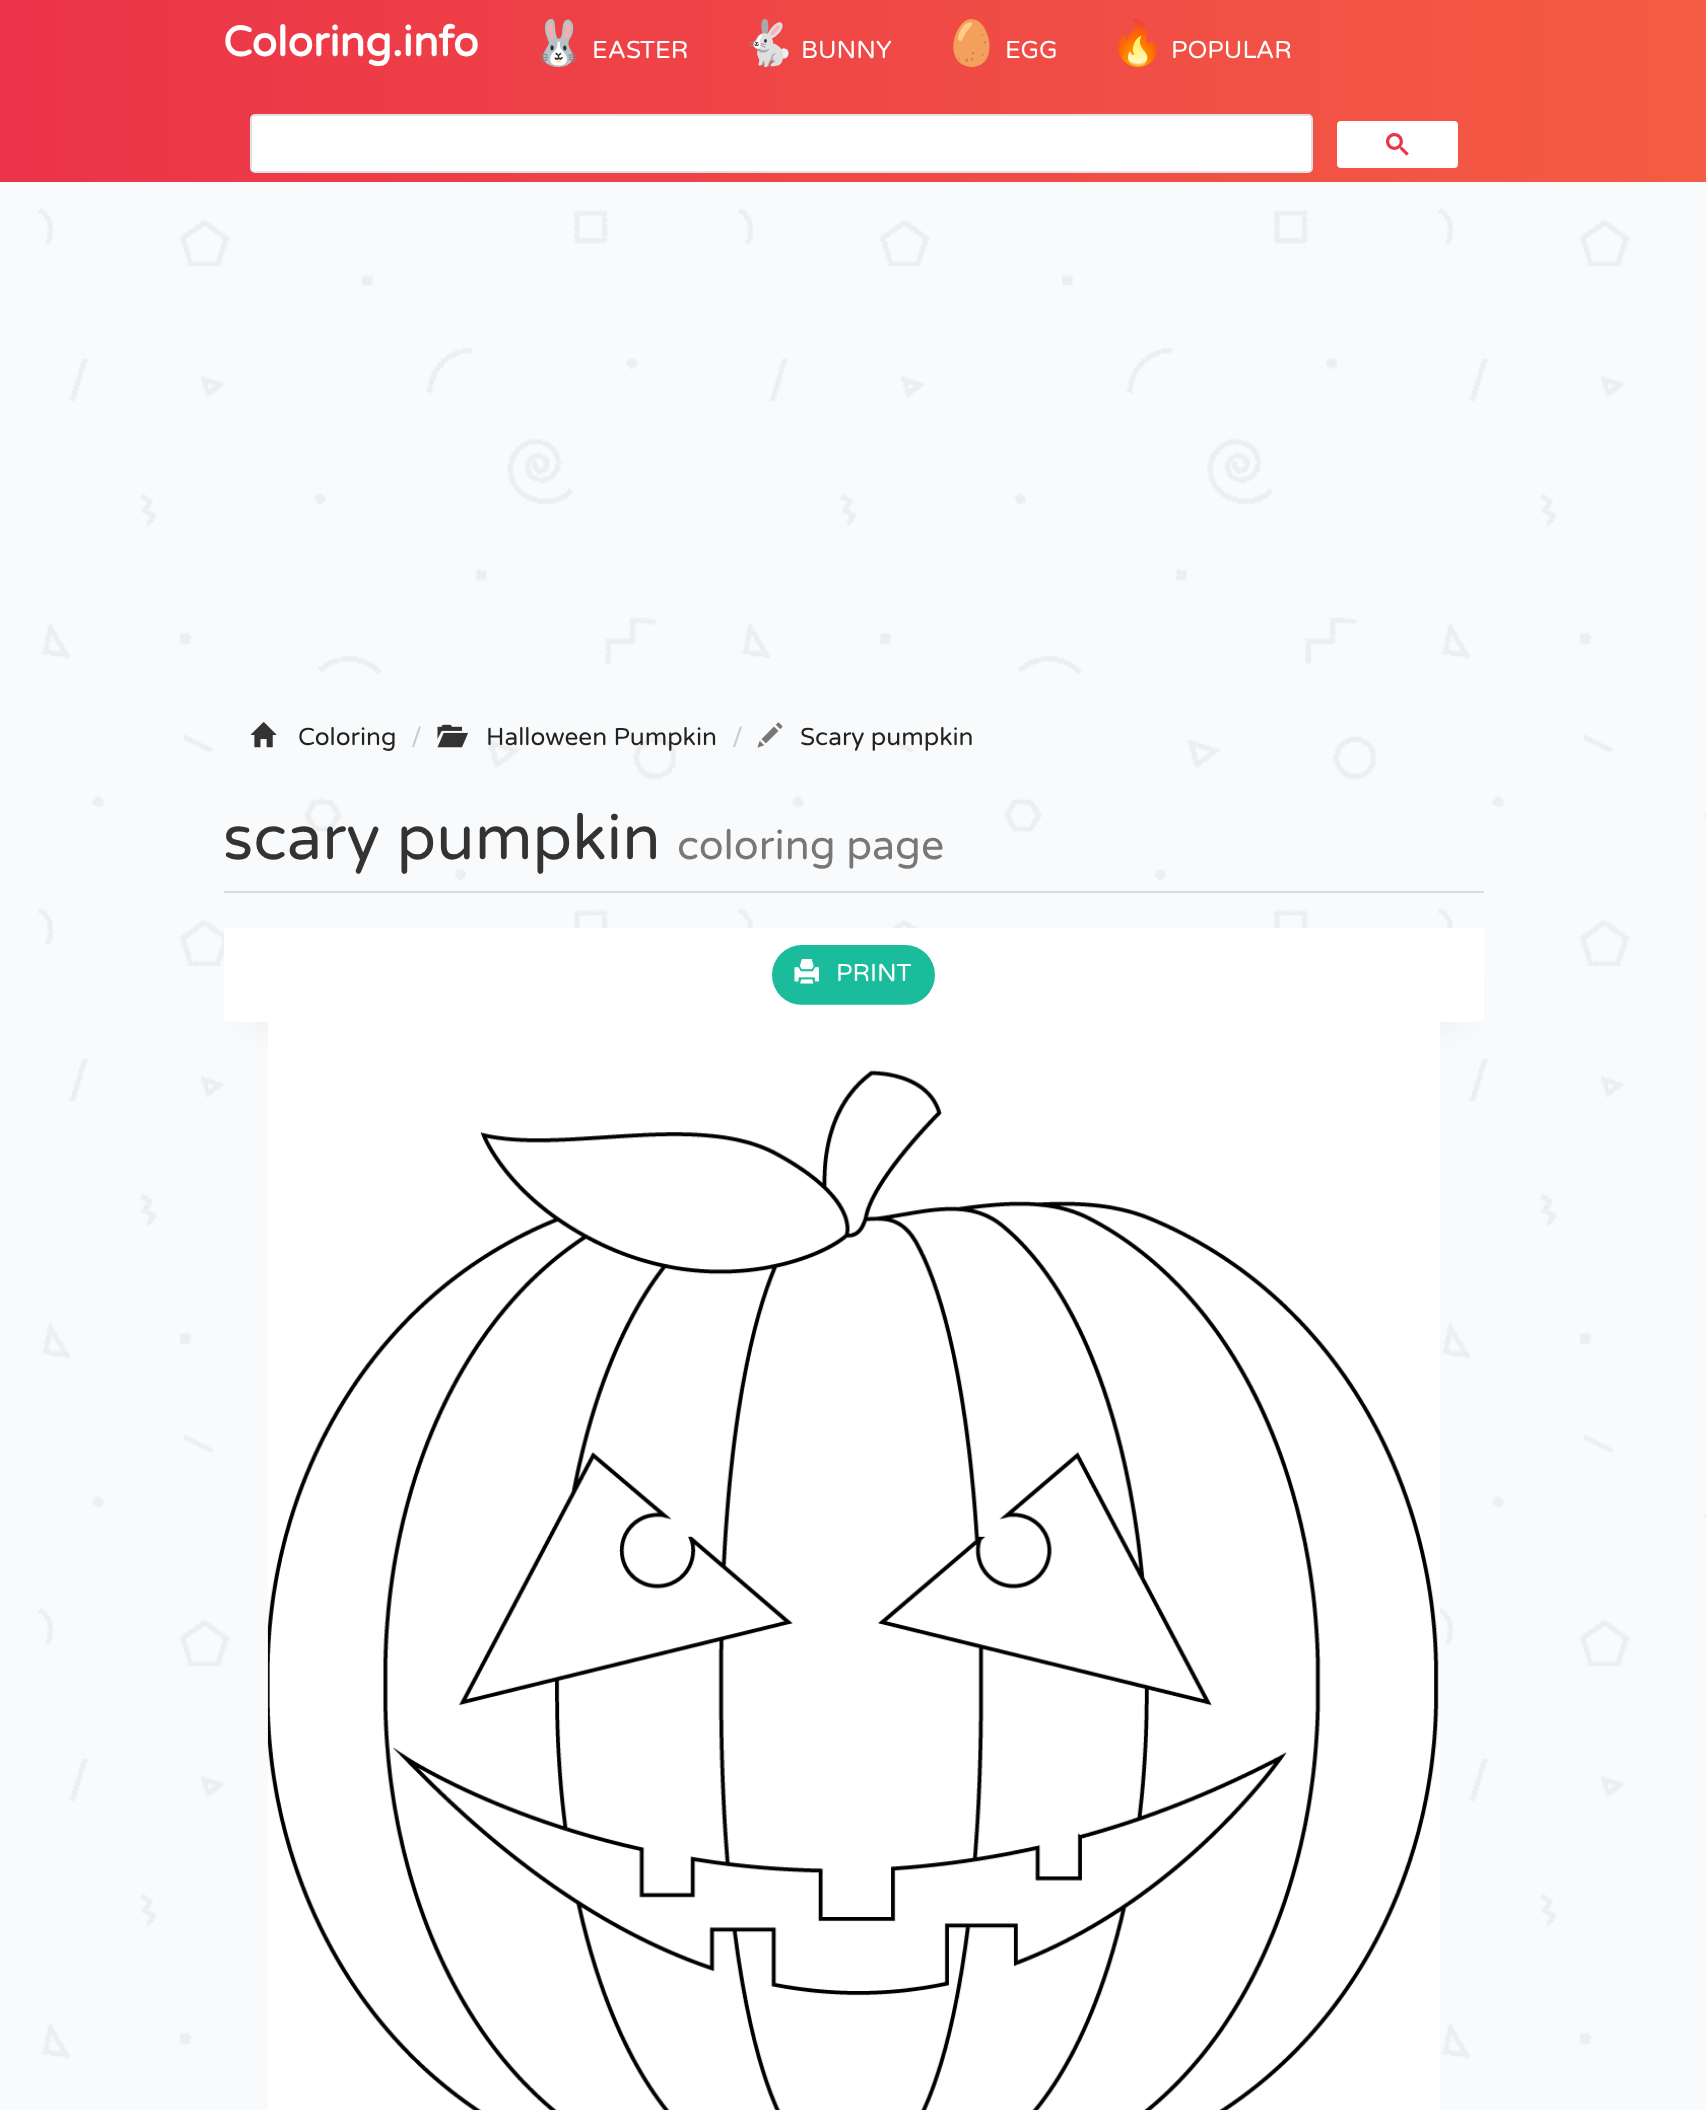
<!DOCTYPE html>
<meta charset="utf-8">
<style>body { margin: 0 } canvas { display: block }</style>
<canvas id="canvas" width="1706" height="2110"></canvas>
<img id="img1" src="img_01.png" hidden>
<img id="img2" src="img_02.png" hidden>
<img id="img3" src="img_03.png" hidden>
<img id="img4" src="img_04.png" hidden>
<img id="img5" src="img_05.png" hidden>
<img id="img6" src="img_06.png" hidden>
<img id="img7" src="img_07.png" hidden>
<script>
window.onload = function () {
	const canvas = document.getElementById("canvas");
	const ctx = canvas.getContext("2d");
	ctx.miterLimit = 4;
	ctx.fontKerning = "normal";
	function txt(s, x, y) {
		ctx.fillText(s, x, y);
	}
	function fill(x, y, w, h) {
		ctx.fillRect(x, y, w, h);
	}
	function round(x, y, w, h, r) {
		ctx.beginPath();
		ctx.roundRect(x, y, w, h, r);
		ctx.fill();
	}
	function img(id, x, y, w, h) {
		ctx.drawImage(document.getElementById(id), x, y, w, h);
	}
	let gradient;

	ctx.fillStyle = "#FFFFFF";
	fill(0, 0, 1706, 2110);
	img("img1", 0, 182, 1706, 1928);
	gradient = ctx.createLinearGradient(0, 90, 1706, 90);
	gradient.addColorStop(0, "#EB3349");
	gradient.addColorStop(1, "#F45C43");
	ctx.fillStyle = gradient;
	fill(0, 0, 1706, 182);
	ctx.fillStyle = "#FFFFFF";
	ctx.beginPath();
	ctx.roundRect(251, 115, 1061, 57, 4);
	ctx.fill();
	ctx.strokeStyle = "#DFE1E5";
	ctx.lineWidth = 2;
	ctx.stroke();
	ctx.beginPath();
	ctx.roundRect(1338, 122, 119, 45, 3);
	ctx.fill();
	ctx.strokeStyle = "#FFFFFF";
	ctx.stroke();
	img("img2", 1386, 133, 23, 23);
	img("img3", 250, 722, 27, 26);
	img("img4", 437, 724, 31, 24);
	img("img5", 757, 722, 26, 26);
	ctx.fillStyle = "#DBDBDB";
	fill(224, 891, 1260, 2);
	ctx.fillStyle = "rgba(10, 10, 10, 0.05)";
	ctx.filter = "blur(13px)";
	ctx.beginPath();
	ctx.rect(247, 977, 1216, 50);
	ctx.fill();
	ctx.filter = "none";
	ctx.fillStyle = "#FFFFFF";
	fill(224, 928, 1260, 94);
	ctx.fillStyle = "#1ABC9C";
	round(772, 945, 163, 60, 30);
	img("img6", 794, 959, 25, 25);
	img("img7", 267, 1004, 1173, 1106);
	ctx.font = "bold 42px Varela Round";
	ctx.fillStyle = "#FFFFFF";
	txt("Coloring.info", 223, 56);
	ctx.font = "44px Noto Color Emoji";
	txt("🐰", 531, 58);
	ctx.font = "24.5px Varela Round";
	txt("EASTER", 592, 58);
	ctx.font = "44px Noto Color Emoji";
	txt("🐇", 741, 58);
	ctx.font = "24.5px Varela Round";
	txt("BUNNY", 801, 58);
	ctx.font = "44px Noto Color Emoji";
	txt("🥚", 944, 58);
	ctx.font = "24.5px Varela Round";
	txt("EGG", 1005, 58);
	ctx.font = "44px Noto Color Emoji";
	txt("🔥", 1110, 58);
	ctx.font = "24.5px Varela Round";
	txt("POPULAR", 1171, 58);
	ctx.fillStyle = "#222222";
	txt("Coloring", 298, 745);
	ctx.fillStyle = "#CCCCCC";
	txt("/", 411, 745);
	ctx.fillStyle = "#222222";
	txt("Halloween Pumpkin", 486, 745);
	ctx.fillStyle = "#CCCCCC";
	txt("/", 732, 745);
	ctx.fillStyle = "#222222";
	txt("Scary pumpkin", 800, 745);
	ctx.font = "63px Varela Round";
	ctx.fillStyle = "#333333";
	txt("scary pumpkin", 223, 859);
	ctx.font = "41px Varela Round";
	ctx.fillStyle = "#777777";
	txt("coloring page", 677, 859);
	ctx.font = "24.5px Varela Round";
	ctx.fillStyle = "#FFFFFF";
	txt("PRINT", 836, 981);
};
</script>
